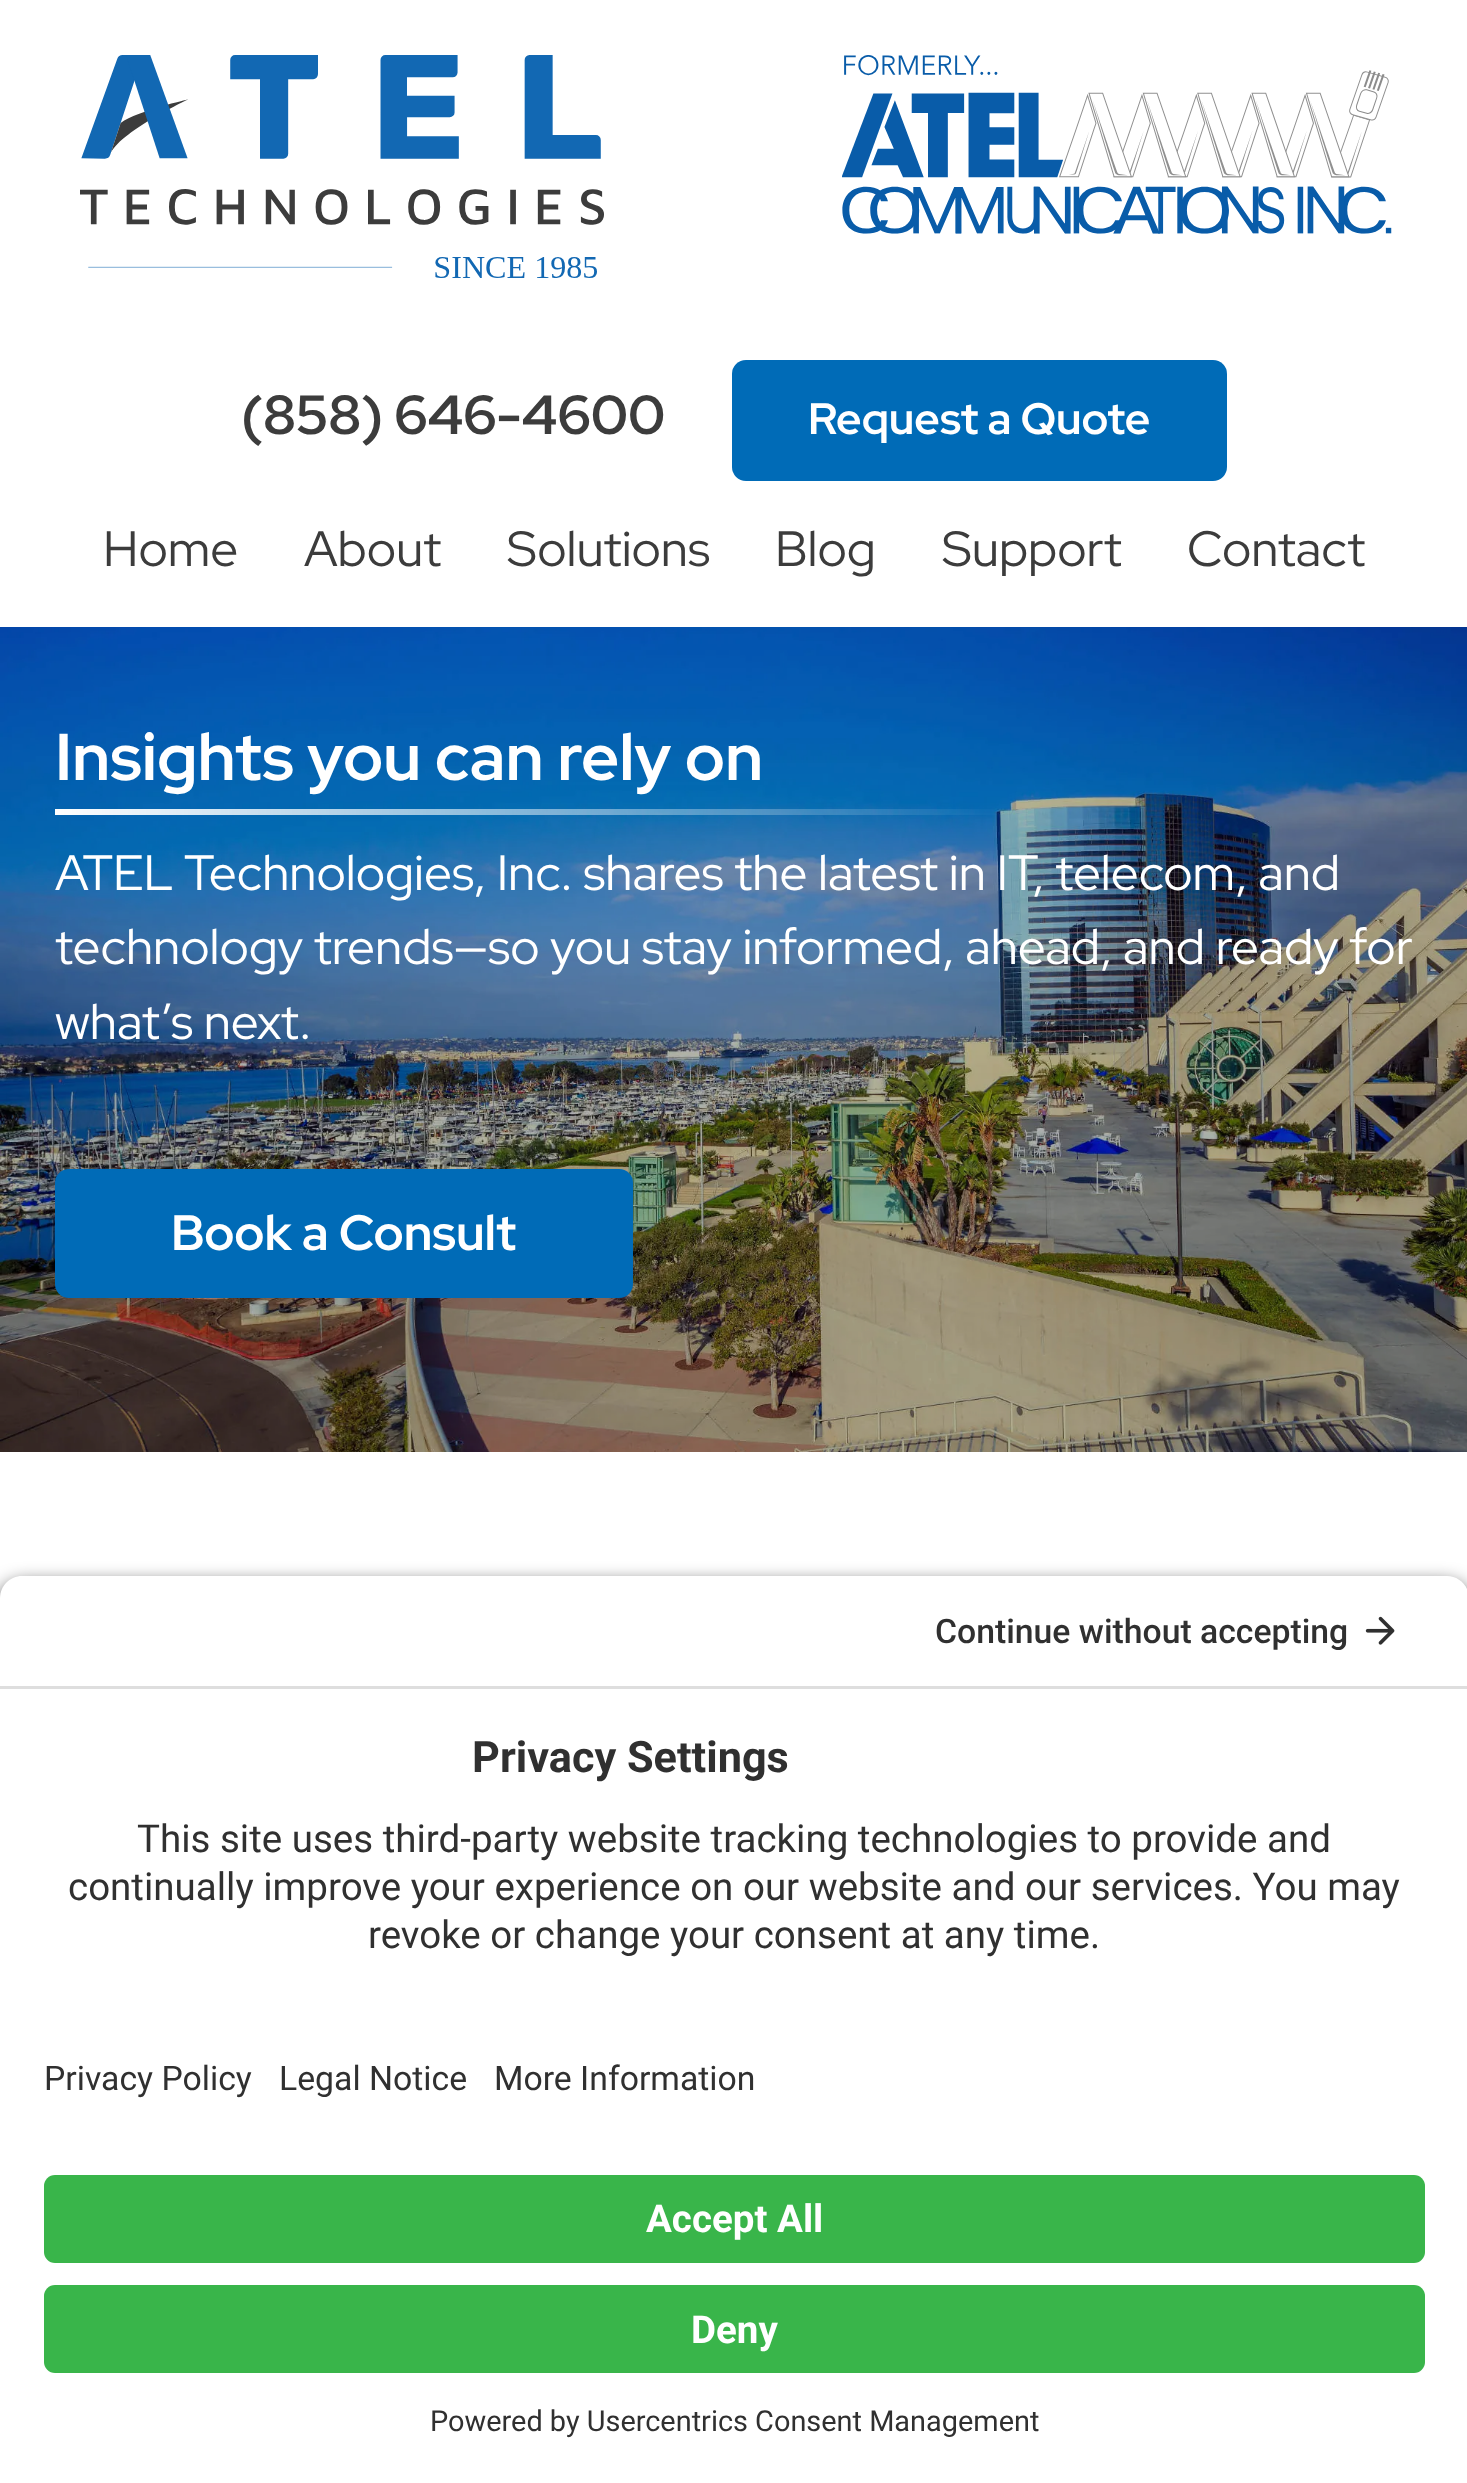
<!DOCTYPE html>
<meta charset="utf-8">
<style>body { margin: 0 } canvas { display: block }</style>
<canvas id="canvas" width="1467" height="2483"></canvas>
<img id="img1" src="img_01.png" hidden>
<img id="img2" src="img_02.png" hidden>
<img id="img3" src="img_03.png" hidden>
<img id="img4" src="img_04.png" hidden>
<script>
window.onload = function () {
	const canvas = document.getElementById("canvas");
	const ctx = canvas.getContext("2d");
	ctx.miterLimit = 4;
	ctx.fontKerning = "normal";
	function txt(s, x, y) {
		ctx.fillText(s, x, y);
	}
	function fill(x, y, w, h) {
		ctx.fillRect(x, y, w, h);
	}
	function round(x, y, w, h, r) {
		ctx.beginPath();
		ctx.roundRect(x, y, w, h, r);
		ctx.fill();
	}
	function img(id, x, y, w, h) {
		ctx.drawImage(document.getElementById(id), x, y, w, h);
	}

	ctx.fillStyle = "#FFFFFF";
	fill(0, 0, 1467, 2483);
	img("img1", 80, 55, 524, 223);
	img("img2", 842, 55, 550, 179);
	ctx.fillStyle = "#006BB7";
	round(732, 360, 495, 121, 14);
	img("img3", 0, 627, 1467, 825);
	round(55, 1169, 578, 129, 14);
	ctx.fillStyle = "rgba(0, 0, 0, 0.8)";
	ctx.filter = "blur(9.5px)";
	ctx.beginPath();
	ctx.roundRect(0, 1584, 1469, 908, 22);
	ctx.fill();
	ctx.filter = "none";
	ctx.fillStyle = "#FFFFFF";
	ctx.beginPath();
	ctx.moveTo(22, 1576);
	ctx.lineTo(1447, 1576);
	ctx.bezierCurveTo(1459, 1576, 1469, 1586, 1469, 1598);
	ctx.lineTo(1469, 1689);
	ctx.lineTo(0, 1689);
	ctx.lineTo(0, 1598);
	ctx.bezierCurveTo(0, 1586, 10, 1576, 22, 1576);
	ctx.closePath();
	ctx.fill();
	ctx.fillStyle = "#DEDEDE";
	fill(0, 1686, 1467, 3);
	img("img4", 1365, 1616, 30, 29);
	ctx.fillStyle = "#FFFFFF";
	fill(0, 1689, 1467, 794);
	ctx.fillStyle = "#39B54A";
	round(44, 2175, 1381, 88, 11);
	round(44, 2285, 1381, 88, 11);
	ctx.font = "bold 55px Red Hat Display";
	ctx.fillStyle = "#3C3C3C";
	txt("(858) 646-4600", 241, 434);
	ctx.font = "bold 44px Red Hat Display";
	ctx.fillStyle = "#FFFFFF";
	txt("Request a Quote", 808, 434);
	ctx.font = "49.5px Red Hat Display";
	ctx.fillStyle = "#3C3C3C";
	txt("Home", 103, 566);
	txt("About", 304, 566);
	txt("Solutions", 507, 566);
	txt("Blog", 775, 566);
	txt("Support", 942, 566);
	txt("Contact", 1187, 566);
	ctx.font = "bold 66px Red Hat Display";
	ctx.fillStyle = "#FFFFFF";
	txt("Insights you can rely on", 55, 780);
	ctx.font = "49.5px Red Hat Display";
	txt("ATEL Technologies, Inc. shares the latest in IT, telecom, and", 55, 890);
	txt("technology trends—so you stay informed, ahead, and ready for", 55, 964);
	txt("what’s next.", 55, 1039);
	ctx.font = "bold 49.5px Red Hat Display";
	txt("Book a Consult", 171, 1250);
	ctx.font = "500 33.75px Roboto";
	ctx.fillStyle = "#303030";
	txt("Continue without accepting", 935, 1643);
	ctx.font = "bold 43.25px Roboto";
	txt("Privacy Settings", 472, 1772);
	ctx.font = "38.5px Roboto";
	txt("This site uses third-party website tracking technologies to provide and", 137, 1852);
	txt("continually improve your experience on our website and our services. You may", 68, 1900);
	txt("revoke or change your consent at any time.", 368, 1948);
	ctx.font = "33.75px Roboto";
	txt("Privacy Policy", 44, 2090);
	txt("Legal Notice", 279, 2090);
	txt("More Information", 494, 2090);
	ctx.font = "bold 38.5px Roboto";
	ctx.fillStyle = "#FFFFFF";
	txt("Accept All", 646, 2232);
	txt("Deny", 691, 2343);
	ctx.font = "28.9px Roboto";
	ctx.fillStyle = "#303030";
	txt("Powered by Usercentrics Consent Management", 430, 2431);
};
</script>
